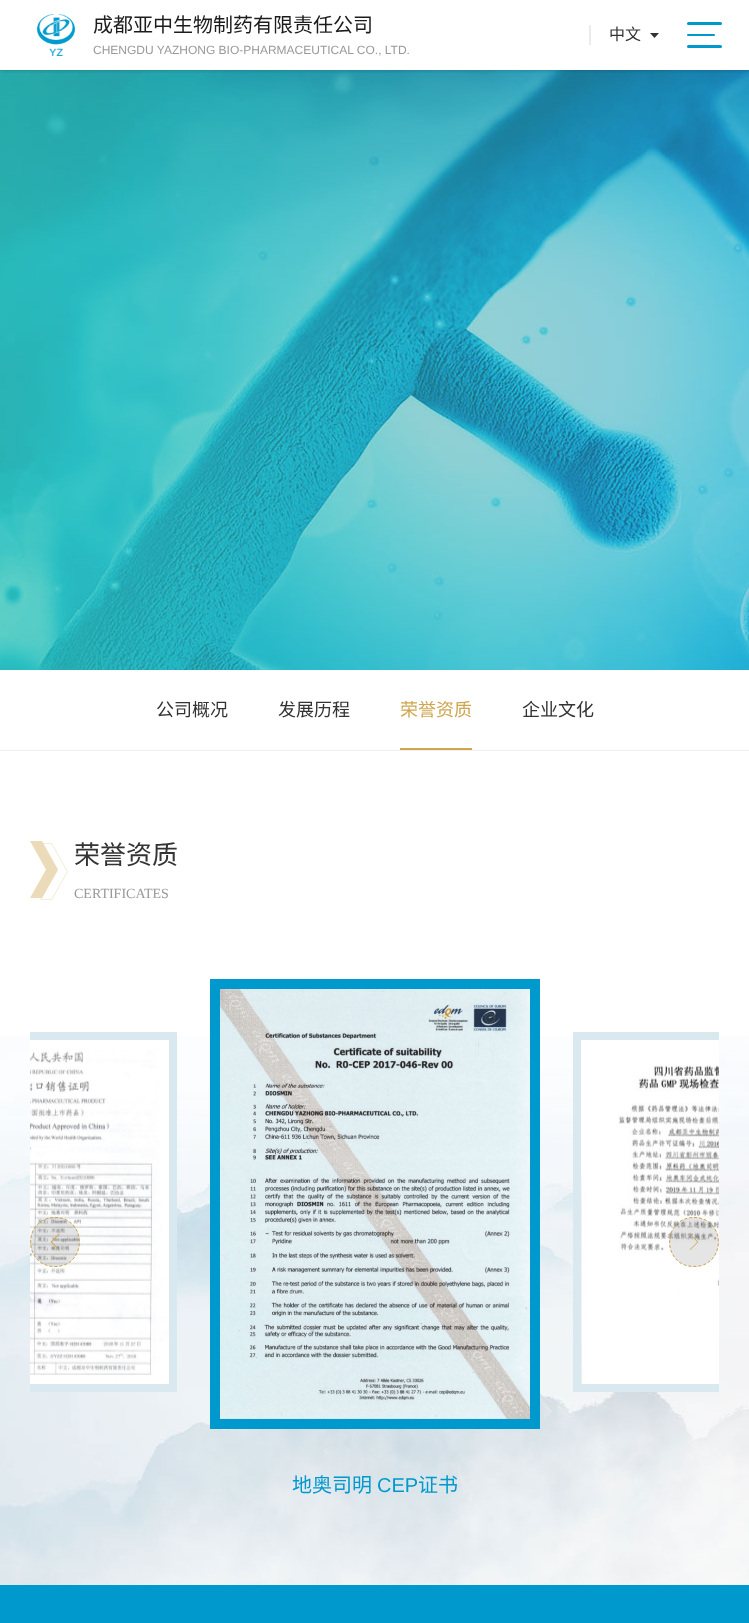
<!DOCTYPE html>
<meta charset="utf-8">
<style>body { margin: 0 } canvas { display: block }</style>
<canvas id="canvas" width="749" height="1623"></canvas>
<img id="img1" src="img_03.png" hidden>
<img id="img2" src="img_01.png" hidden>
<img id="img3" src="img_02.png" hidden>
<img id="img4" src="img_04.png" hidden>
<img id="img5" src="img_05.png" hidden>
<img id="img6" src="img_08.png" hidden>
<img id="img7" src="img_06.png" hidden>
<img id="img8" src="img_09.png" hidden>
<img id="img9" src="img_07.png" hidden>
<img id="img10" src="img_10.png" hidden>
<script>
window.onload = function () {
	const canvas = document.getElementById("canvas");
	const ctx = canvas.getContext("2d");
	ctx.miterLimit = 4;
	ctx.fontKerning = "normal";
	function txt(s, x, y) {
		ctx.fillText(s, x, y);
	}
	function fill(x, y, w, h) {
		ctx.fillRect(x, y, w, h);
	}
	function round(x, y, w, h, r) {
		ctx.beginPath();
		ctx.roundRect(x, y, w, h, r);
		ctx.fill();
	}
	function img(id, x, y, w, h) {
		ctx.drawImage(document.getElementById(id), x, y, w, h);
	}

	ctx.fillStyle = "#FFFFFF";
	fill(0, 0, 749, 1623);
	img("img1", 0, 70, 749, 600);
	ctx.save();
	ctx.beginPath();
	ctx.rect(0, 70, 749, 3);
	ctx.clip();
	ctx.fillStyle = "rgba(0, 0, 0, 0.2)";
	ctx.filter = "blur(2.5px)";
	ctx.beginPath();
	ctx.rect(0, 0, 749, 70);
	ctx.fill();
	ctx.filter = "none";
	ctx.restore();
	img("img2", 37, 14, 38, 42);
	ctx.fillStyle = "#EBEBEB";
	fill(589, 25, 2, 20);
	img("img3", 650, 33, 9, 5);
	ctx.fillStyle = "#0099CD";
	round(687, 22, 35, 3, 1.5);
	round(687, 34, 28, 2, 1);
	round(687, 45, 35, 3, 1.5);
	ctx.fillStyle = "#F0F0F0";
	fill(0, 750, 749, 1);
	ctx.fillStyle = "#CFA54F";
	fill(400, 748, 72, 2);
	img("img4", 0, 1036, 749, 549);
	img("img5", 30, 841, 38, 59);
	ctx.fillStyle = "#DAE8F0";
	fill(30, 1032, 147, 360);
	img("img6", 30, 1040, 139, 344);
	ctx.fillStyle = "rgba(0, 0, 0, 0.1)";
	ctx.beginPath();
	ctx.arc(55, 1242, 25, 0, Math.PI * 2);
	ctx.fill();
	img("img7", 50, 1233, 10, 18);
	ctx.beginPath();
	ctx.moveTo(55, 1217.5);
	ctx.bezierCurveTo(87.5, 1217.5, 87.5, 1266.5, 55, 1266.5);
	ctx.bezierCurveTo(22.5, 1266.5, 22.5, 1217.5, 55, 1217.5);
	ctx.closePath();
	ctx.strokeStyle = "#CFA54F";
	ctx.setLineDash([3, 2]);
	ctx.stroke();
	ctx.fillStyle = "#DAE8F0";
	fill(573, 1032, 146, 360);
	img("img8", 581, 1040, 138, 344);
	ctx.fillStyle = "rgba(0, 0, 0, 0.1)";
	ctx.beginPath();
	ctx.arc(694, 1242, 25, 0, Math.PI * 2);
	ctx.fill();
	img("img9", 689, 1234, 9, 16);
	ctx.beginPath();
	ctx.moveTo(694, 1217.5);
	ctx.bezierCurveTo(726.5, 1217.5, 726.5, 1266.5, 694, 1266.5);
	ctx.bezierCurveTo(661.5, 1266.5, 661.5, 1217.5, 694, 1217.5);
	ctx.closePath();
	ctx.stroke();
	ctx.fillStyle = "#0099CD";
	fill(210, 979, 330, 450);
	img("img10", 220, 989, 310, 430);
	fill(0, 1585, 749, 38);
	ctx.font = "20px Noto Sans CJK SC";
	ctx.fillStyle = "#1C1C1C";
	txt("成都亚中生物制药有限责任公司", 93, 32);
	ctx.font = "12px Liberation Sans";
	ctx.fillStyle = "#999999";
	txt("CHENGDU YAZHONG BIO-PHARMACEUTICAL CO., LTD.", 93, 54);
	ctx.font = "16px Noto Sans CJK SC";
	ctx.fillStyle = "#333333";
	txt("中文", 609, 40);
	ctx.font = "18px Noto Sans CJK SC";
	txt("公司概况", 156, 716);
	txt("发展历程", 278, 716);
	ctx.fillStyle = "#CFA54F";
	txt("荣誉资质", 400, 716);
	ctx.fillStyle = "#333333";
	txt("企业文化", 522, 716);
	ctx.font = "26px Noto Sans CJK SC";
	txt("荣誉资质", 74, 864);
	ctx.font = "14px Liberation Serif";
	ctx.fillStyle = "#999999";
	txt("CERTIFICATES", 74, 898);
	ctx.font = "20px Noto Sans CJK SC";
	ctx.fillStyle = "#0099CD";
	txt("地奥司明", 292, 1492);
	ctx.font = "20px Liberation Sans";
	txt("CEP", 377, 1492);
	ctx.font = "20px Noto Sans CJK SC";
	txt("证书", 418, 1492);
};
</script>
